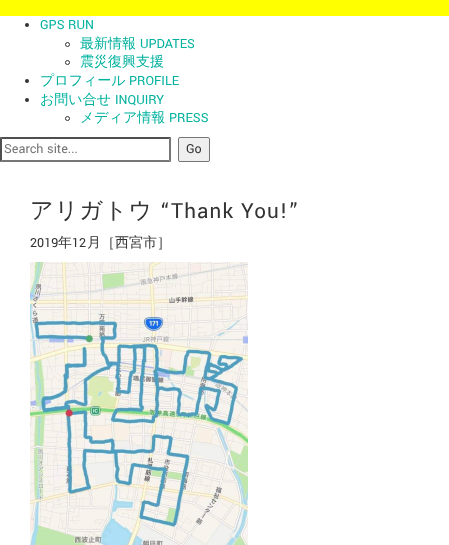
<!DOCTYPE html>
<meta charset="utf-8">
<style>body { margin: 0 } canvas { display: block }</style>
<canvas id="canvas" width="449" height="545"></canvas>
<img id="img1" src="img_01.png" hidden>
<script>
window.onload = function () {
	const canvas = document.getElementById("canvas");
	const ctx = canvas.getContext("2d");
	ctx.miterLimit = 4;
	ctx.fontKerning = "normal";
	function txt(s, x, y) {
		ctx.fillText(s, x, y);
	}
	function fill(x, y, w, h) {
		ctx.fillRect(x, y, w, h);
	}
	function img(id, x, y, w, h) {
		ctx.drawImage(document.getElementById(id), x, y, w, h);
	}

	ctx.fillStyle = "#FFFFFF";
	fill(0, 0, 449, 545);
	ctx.fillStyle = "#FFFF00";
	fill(0, 0, 449, 16);
	ctx.fillStyle = "#333333";
	ctx.beginPath();
	ctx.arc(27, 25, 2, 0, Math.PI * 2);
	ctx.fill();
	ctx.beginPath();
	ctx.arc(67.5, 44.5, 2, 0, Math.PI * 2);
	ctx.strokeStyle = "#333333";
	ctx.stroke();
	ctx.beginPath();
	ctx.arc(67.5, 62.5, 2, 0, Math.PI * 2);
	ctx.stroke();
	ctx.beginPath();
	ctx.arc(27, 81, 2, 0, Math.PI * 2);
	ctx.fill();
	ctx.beginPath();
	ctx.arc(27, 100, 2, 0, Math.PI * 2);
	ctx.fill();
	ctx.beginPath();
	ctx.arc(67.5, 118.5, 2, 0, Math.PI * 2);
	ctx.stroke();
	ctx.fillStyle = "#4F4F4F";
	ctx.beginPath();
	ctx.moveTo(0, 137);
	ctx.lineTo(171, 137);
	ctx.lineTo(169, 139);
	ctx.lineTo(2, 139);
	ctx.closePath();
	ctx.fill();
	ctx.fillStyle = "#767676";
	ctx.beginPath();
	ctx.moveTo(171, 137);
	ctx.lineTo(171, 162);
	ctx.lineTo(169, 160);
	ctx.lineTo(169, 139);
	ctx.closePath();
	ctx.fill();
	ctx.beginPath();
	ctx.moveTo(171, 162);
	ctx.lineTo(0, 162);
	ctx.lineTo(2, 160);
	ctx.lineTo(169, 160);
	ctx.closePath();
	ctx.fill();
	ctx.fillStyle = "#4F4F4F";
	ctx.beginPath();
	ctx.moveTo(0, 162);
	ctx.lineTo(0, 137);
	ctx.lineTo(2, 139);
	ctx.lineTo(2, 160);
	ctx.closePath();
	ctx.fill();
	ctx.fillStyle = "#EFEFEF";
	ctx.beginPath();
	ctx.roundRect(178.5, 137.5, 31, 24, 1.5);
	ctx.fill();
	ctx.strokeStyle = "#767676";
	ctx.stroke();
	img("img1", 30, 262, 218, 283);
	ctx.font = "14px Yantramanav";
	ctx.fillStyle = "#00B19E";
	txt("GPS RUN", 40, 29);
	ctx.font = "500 14px WenQuanYi Zen Hei";
	txt("最新情報", 80, 48);
	ctx.font = "14px Yantramanav";
	txt("UPDATES", 140, 48);
	ctx.font = "500 14px WenQuanYi Zen Hei";
	txt("震災復興支援", 80, 66);
	txt("プロフィール", 40, 85);
	ctx.font = "14px Yantramanav";
	txt("PROFILE", 129, 85);
	ctx.font = "500 14px WenQuanYi Zen Hei";
	txt("お問い合せ", 40, 104);
	ctx.font = "14px Yantramanav";
	txt("INQUIRY", 115, 104);
	ctx.font = "500 14px WenQuanYi Zen Hei";
	txt("メディア情報", 80, 122);
	ctx.font = "14px Yantramanav";
	txt("PRESS", 169, 122);
	ctx.fillStyle = "#757575";
	txt("Search site...", 4, 153);
	ctx.fillStyle = "#333333";
	txt("Go", 186, 153);
	ctx.letterSpacing = "1.1px";
	ctx.font = "500 23px WenQuanYi Zen Hei";
	txt("アリガトウ", 30, 218);
	ctx.font = "23px Yantramanav";
	txt("“Thank You!”", 160, 218);
	ctx.letterSpacing = "0px";
	ctx.font = "14px Yantramanav";
	txt("2019", 30, 247);
	ctx.font = "500 14px WenQuanYi Zen Hei";
	txt("年", 58, 247);
	ctx.font = "14px Yantramanav";
	txt("12", 72, 247);
	ctx.font = "500 14px WenQuanYi Zen Hei";
	txt("月［西宮市］", 87, 247);
};
</script>
